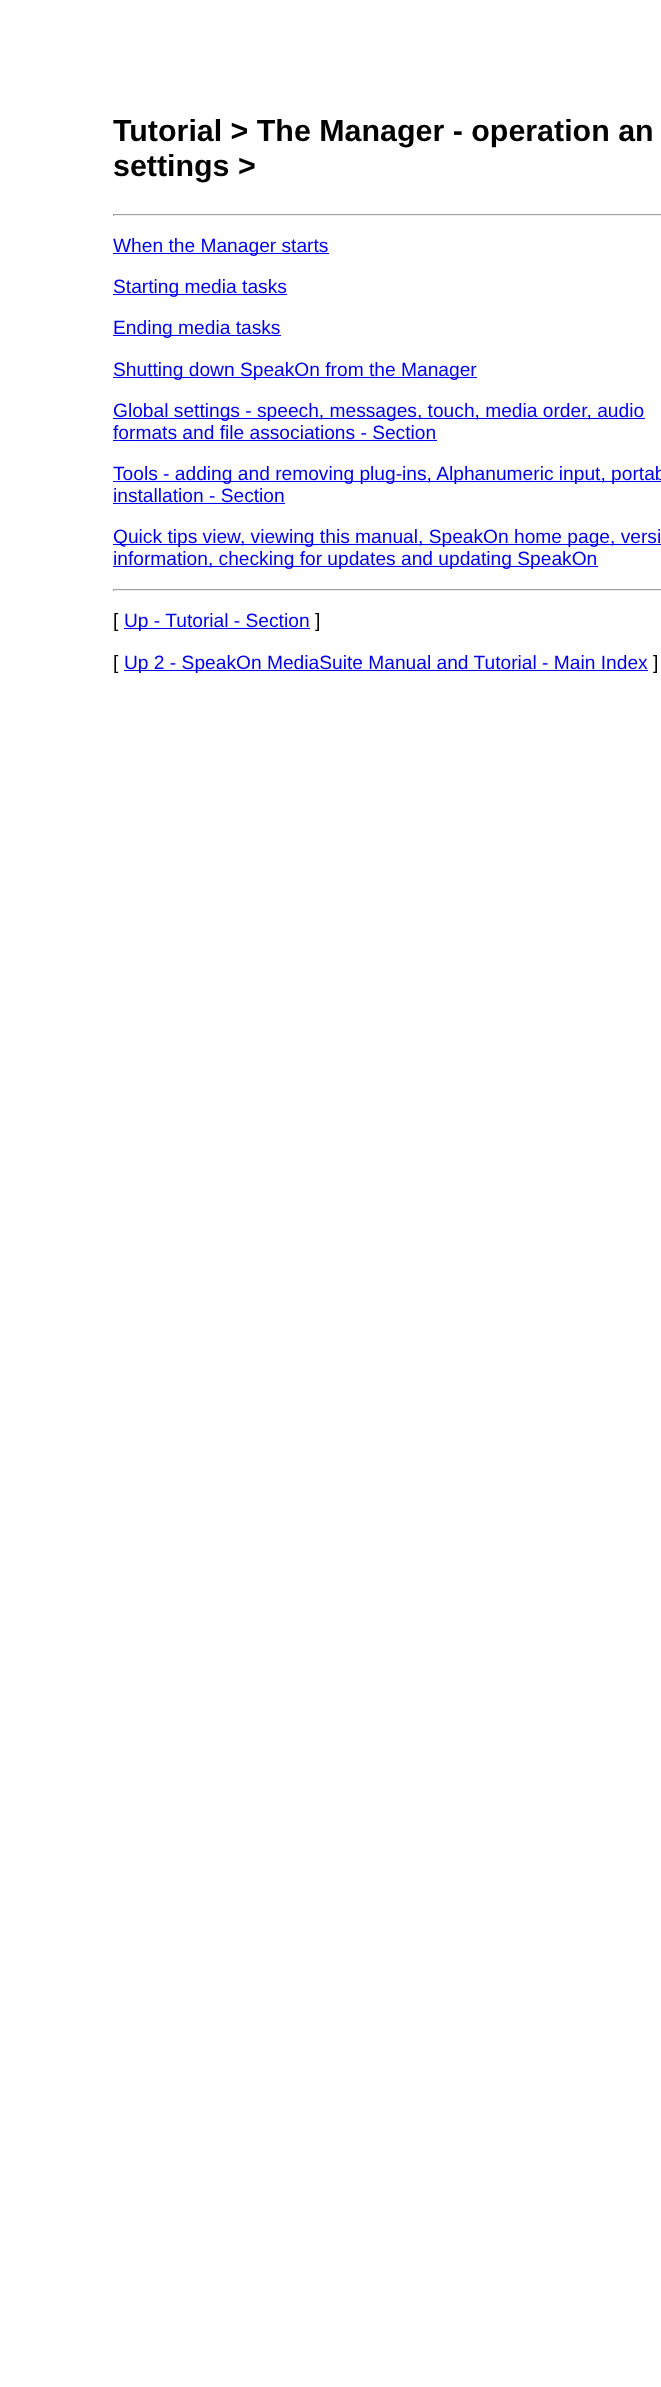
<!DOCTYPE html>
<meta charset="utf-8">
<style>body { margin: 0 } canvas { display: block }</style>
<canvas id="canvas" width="661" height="2387"></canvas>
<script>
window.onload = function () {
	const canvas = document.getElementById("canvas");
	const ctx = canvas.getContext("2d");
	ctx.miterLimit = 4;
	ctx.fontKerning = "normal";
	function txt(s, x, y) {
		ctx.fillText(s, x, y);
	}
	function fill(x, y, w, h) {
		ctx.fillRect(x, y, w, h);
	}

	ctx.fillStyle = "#FFFFFF";
	fill(0, 0, 661, 2387);
	ctx.fillStyle = "#9F9F9F";
	fill(113, 214, 548, 1);
	ctx.fillStyle = "#EEEEEE";
	fill(113, 215, 548, 1);
	ctx.fillStyle = "#9F9F9F";
	fill(113, 214, 1, 2);
	ctx.fillStyle = "#0000EE";
	fill(113, 253, 216, 1);
	fill(113, 294, 174, 1);
	fill(113, 335, 168, 1);
	fill(113, 377, 364, 1);
	fill(113, 418, 532, 1);
	fill(113, 440, 324, 1);
	fill(113, 481, 548, 1);
	fill(113, 503, 172, 1);
	fill(113, 544, 548, 1);
	fill(113, 566, 485, 1);
	ctx.fillStyle = "#9F9F9F";
	fill(113, 589, 548, 1);
	ctx.fillStyle = "#EEEEEE";
	fill(113, 590, 548, 1);
	ctx.fillStyle = "#9F9F9F";
	fill(113, 589, 1, 2);
	ctx.fillStyle = "#0000EE";
	fill(124, 628, 186, 1);
	fill(124, 670, 524, 1);
	ctx.font = "bold 30.4px Liberation Sans";
	ctx.fillStyle = "#000000";
	txt("Tutorial > The Manager - operation an", 113, 141);
	txt("settings >", 113, 176);
	ctx.font = "19.2px Liberation Sans";
	ctx.fillStyle = "#0000EE";
	txt("When the Manager starts", 113, 252);
	txt("Starting media tasks", 113, 293);
	txt("Ending media tasks", 113, 334);
	txt("Shutting down SpeakOn from the Manager", 113, 376);
	txt("Global settings - speech, messages, touch, media order, audio", 113, 417);
	txt("formats and file associations - Section", 113, 439);
	txt("Tools - adding and removing plug-ins, Alphanumeric input, portab", 113, 480);
	txt("installation - Section", 113, 502);
	txt("Quick tips view, viewing this manual, SpeakOn home page, versi", 113, 543);
	txt("information, checking for updates and updating SpeakOn", 113, 565);
	ctx.fillStyle = "#000000";
	txt("[", 113, 627);
	ctx.fillStyle = "#0000EE";
	txt("Up - Tutorial - Section", 124, 627);
	ctx.fillStyle = "#000000";
	txt("]", 315, 627);
	txt("[", 113, 669);
	ctx.fillStyle = "#0000EE";
	txt("Up 2 - SpeakOn MediaSuite Manual and Tutorial - Main Index", 124, 669);
	ctx.fillStyle = "#000000";
	txt("]", 653, 669);
};
</script>
